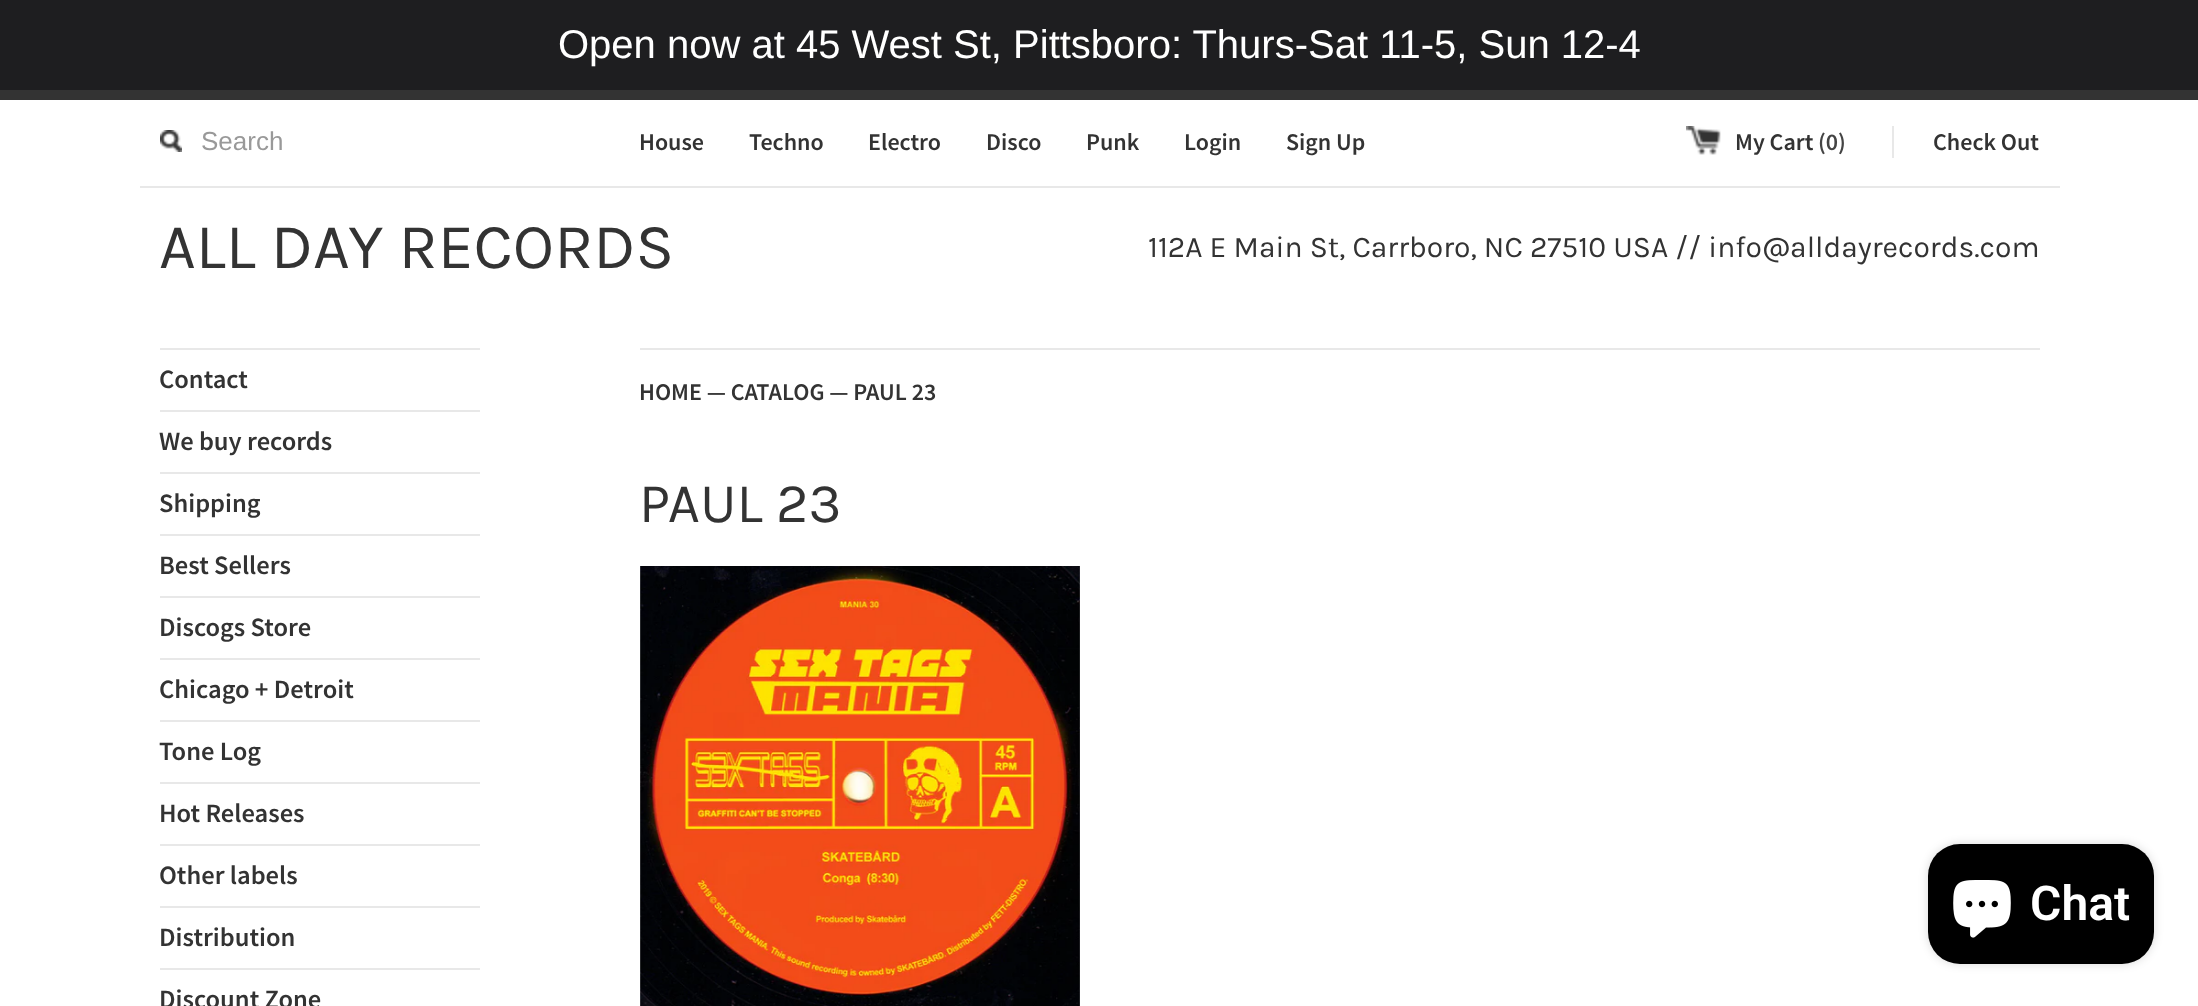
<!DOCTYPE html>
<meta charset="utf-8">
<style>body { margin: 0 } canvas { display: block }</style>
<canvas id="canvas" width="2198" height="1006"></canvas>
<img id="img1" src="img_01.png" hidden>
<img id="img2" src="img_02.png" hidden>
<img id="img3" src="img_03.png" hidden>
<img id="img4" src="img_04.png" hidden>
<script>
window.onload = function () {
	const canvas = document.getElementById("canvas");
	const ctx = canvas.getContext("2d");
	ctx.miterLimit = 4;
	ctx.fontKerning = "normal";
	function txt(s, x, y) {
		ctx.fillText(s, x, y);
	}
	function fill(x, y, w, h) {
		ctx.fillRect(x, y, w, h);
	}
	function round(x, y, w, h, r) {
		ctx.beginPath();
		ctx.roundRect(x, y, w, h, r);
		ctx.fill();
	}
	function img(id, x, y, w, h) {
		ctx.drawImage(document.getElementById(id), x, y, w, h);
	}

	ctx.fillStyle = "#FFFFFF";
	fill(0, 0, 2198, 1006);
	ctx.fillStyle = "#1E1E20";
	fill(0, 0, 2198, 90);
	ctx.fillStyle = "#333333";
	fill(0, 90, 2198, 10);
	ctx.fillStyle = "#E8E8E8";
	fill(140, 186, 1920, 2);
	img("img1", 160, 130, 22, 22);
	img("img2", 1686, 126, 35, 29);
	fill(1892, 126, 2, 32);
	fill(160, 348, 320, 2);
	fill(160, 410, 320, 2);
	fill(160, 472, 320, 2);
	fill(160, 534, 320, 2);
	fill(160, 596, 320, 2);
	fill(160, 658, 320, 2);
	fill(160, 720, 320, 2);
	fill(160, 782, 320, 2);
	fill(160, 844, 320, 2);
	fill(160, 906, 320, 2);
	fill(160, 968, 320, 2);
	fill(640, 348, 1400, 2);
	img("img3", 640, 566, 440, 440);
	ctx.fillStyle = "rgba(0, 0, 0, 0.15)";
	ctx.filter = "blur(5px)";
	ctx.beginPath();
	ctx.roundRect(1928, 844, 226, 120, 32);
	ctx.fill();
	ctx.filter = "none";
	ctx.fillStyle = "#000000";
	round(1928, 844, 226, 120, 32);
	img("img4", 1953, 880, 58, 58);
	ctx.font = "40px Liberation Sans";
	ctx.fillStyle = "#FFFFFF";
	txt("Open now at 45 West St, Pittsboro: Thurs-Sat 11-5, Sun 12-4", 558, 58);
	ctx.font = "26px Liberation Sans";
	ctx.fillStyle = "#999999";
	txt("Search", 201, 150);
	ctx.font = "600 24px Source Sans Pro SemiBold";
	ctx.fillStyle = "#333333";
	txt("House", 639, 150);
	txt("Techno", 749, 150);
	txt("Electro", 868, 150);
	txt("Disco", 986, 150);
	txt("Punk", 1086, 150);
	txt("Login", 1184, 150);
	txt("Sign Up", 1286, 150);
	txt("My Cart", 1735, 150);
	ctx.fillStyle = "#444444";
	txt("(0)", 1818, 150);
	ctx.fillStyle = "#333333";
	txt("Check Out", 1933, 150);
	ctx.font = "64px Karla";
	txt("ALL DAY RECORDS", 159, 268);
	ctx.font = "30px Karla";
	txt("112A E Main St, Carrboro, NC 27510 USA // info@alldayrecords.com", 1148, 257);
	ctx.font = "600 26.5px Source Sans Pro SemiBold";
	txt("Contact", 159, 388);
	txt("We buy records", 159, 450);
	txt("Shipping", 159, 512);
	txt("Best Sellers", 159, 574);
	txt("Discogs Store", 159, 636);
	txt("Chicago + Detroit", 159, 698);
	txt("Tone Log", 159, 760);
	txt("Hot Releases", 159, 822);
	txt("Other labels", 159, 884);
	txt("Distribution", 159, 946);
	txt("Discount Zone", 159, 1008);
	ctx.font = "600 24px Source Sans Pro SemiBold";
	txt("HOME — CATALOG — PAUL 23", 639, 400);
	ctx.font = "56px Karla";
	txt("PAUL 23", 639, 522);
	ctx.font = "600 48px Roboto";
	ctx.fillStyle = "#FFFFFF";
	txt("Chat", 2030, 920);
};
</script>
